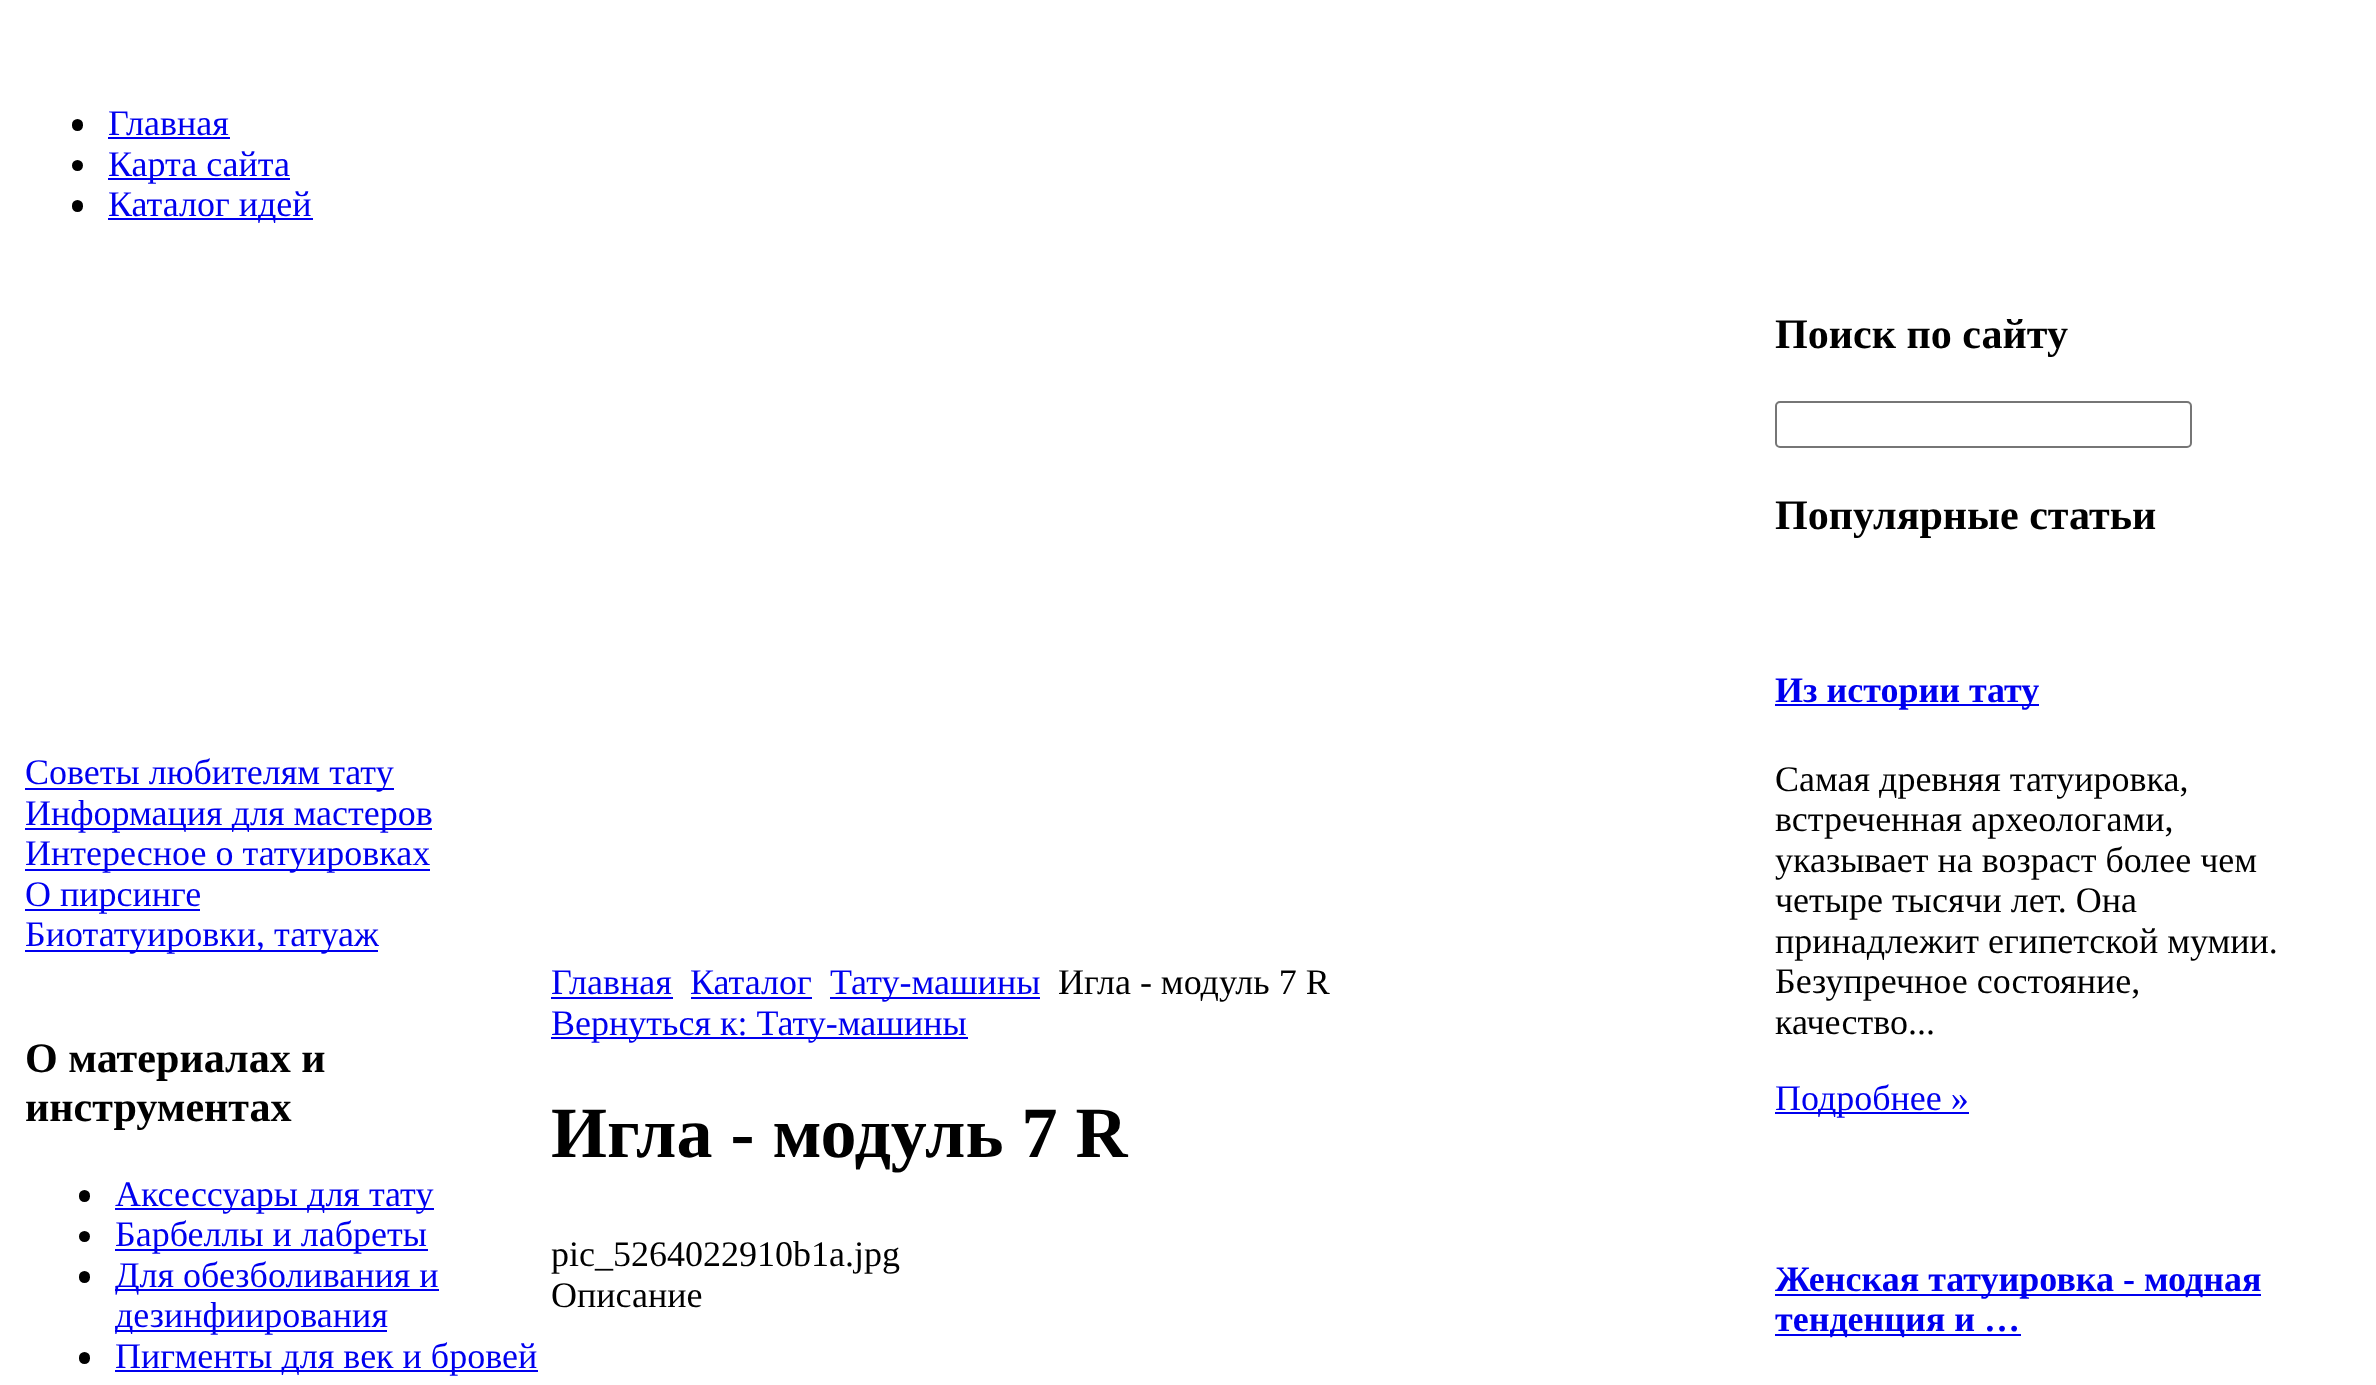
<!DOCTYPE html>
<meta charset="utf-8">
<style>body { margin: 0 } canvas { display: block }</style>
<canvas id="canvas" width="2376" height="1385"></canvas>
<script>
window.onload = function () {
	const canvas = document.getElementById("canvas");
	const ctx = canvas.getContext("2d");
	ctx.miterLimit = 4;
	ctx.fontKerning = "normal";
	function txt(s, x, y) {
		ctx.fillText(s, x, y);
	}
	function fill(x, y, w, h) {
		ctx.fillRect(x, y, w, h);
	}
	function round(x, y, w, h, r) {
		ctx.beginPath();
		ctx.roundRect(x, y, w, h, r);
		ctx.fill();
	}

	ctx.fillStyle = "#FFFFFF";
	fill(0, 0, 2376, 1385);
	ctx.fillStyle = "#000000";
	round(72, 119, 11, 12, 5.5);
	ctx.fillStyle = "#0000EE";
	fill(108, 137, 122, 2);
	ctx.fillStyle = "#000000";
	ctx.beginPath();
	ctx.arc(77.5, 165.5, 5.5, 0, Math.PI * 2);
	ctx.fill();
	ctx.fillStyle = "#0000EE";
	fill(108, 178, 182, 2);
	ctx.fillStyle = "#000000";
	round(72, 200, 11, 12, 5.5);
	ctx.fillStyle = "#0000EE";
	fill(108, 218, 205, 2);
	fill(25, 788, 369, 2);
	fill(25, 828, 407, 2);
	fill(25, 869, 405, 2);
	fill(25, 909, 175, 2);
	fill(25, 950, 353, 2);
	ctx.fillStyle = "#000000";
	round(79, 1190, 11, 12, 5.5);
	ctx.fillStyle = "#0000EE";
	fill(115, 1208, 319, 2);
	ctx.fillStyle = "#000000";
	ctx.beginPath();
	ctx.arc(84.5, 1236.5, 5.5, 0, Math.PI * 2);
	ctx.fill();
	ctx.fillStyle = "#0000EE";
	fill(115, 1249, 313, 2);
	ctx.fillStyle = "#000000";
	round(79, 1271, 11, 12, 5.5);
	ctx.fillStyle = "#0000EE";
	fill(115, 1289, 324, 2);
	fill(115, 1330, 272, 2);
	ctx.fillStyle = "#000000";
	round(79, 1352, 11, 12, 5.5);
	ctx.fillStyle = "#0000EE";
	fill(115, 1370, 423, 2);
	fill(551, 997, 122, 2);
	fill(691, 997, 121, 2);
	fill(830, 997, 210, 2);
	fill(551, 1037, 417, 2);
	ctx.beginPath();
	ctx.roundRect(1776, 402, 415, 45, 4);
	ctx.strokeStyle = "#767676";
	ctx.lineWidth = 2;
	ctx.stroke();
	fill(1775, 704, 264, 2);
	fill(1775, 1112, 194, 2);
	fill(1775, 1294, 486, 2);
	fill(1775, 1334, 246, 2);
	ctx.font = "36px Liberation Serif";
	txt("Главная", 108, 135);
	txt("Карта сайта", 108, 176);
	txt("Каталог идей", 108, 216);
	txt("Советы любителям тату", 25, 784);
	txt("Информация для мастеров", 25, 825);
	txt("Интересное о татуировках", 25, 865);
	txt("О пирсинге", 25, 906);
	txt("Биотатуировки, татуаж", 25, 946);
	ctx.font = "bold 42.1px Liberation Serif";
	ctx.fillStyle = "#000000";
	txt("О материалах и", 25, 1072);
	txt("инструментах", 25, 1121);
	ctx.font = "36px Liberation Serif";
	ctx.fillStyle = "#0000EE";
	txt("Аксессуары для тату", 115, 1206);
	txt("Барбеллы и лабреты", 115, 1246);
	txt("Для обезболивания и", 115, 1287);
	txt("дезинфиирования", 115, 1327);
	txt("Пигменты для век и бровей", 115, 1368);
	txt("Главная", 551, 994);
	txt("Каталог", 690, 994);
	txt("Тату-машины", 830, 994);
	ctx.fillStyle = "#000000";
	txt("Игла - модуль 7 R", 1058, 994);
	ctx.fillStyle = "#0000EE";
	txt("Вернуться к: Тату-машины", 551, 1035);
	ctx.font = "bold 72px Liberation Serif";
	ctx.fillStyle = "#000000";
	txt("Игла - модуль 7 R", 551, 1157);
	ctx.font = "36px Liberation Serif";
	txt("pic_5264022910b1a.jpg", 551, 1266);
	txt("Описание", 551, 1307);
	ctx.font = "bold 42.1px Liberation Serif";
	txt("Поиск по сайту", 1775, 348);
	txt("Популярные статьи", 1775, 529);
	ctx.font = "bold 36px Liberation Serif";
	ctx.fillStyle = "#0000EE";
	txt("Из истории тату", 1775, 702);
	ctx.font = "36px Liberation Serif";
	ctx.fillStyle = "#000000";
	txt("Самая древняя татуировка,", 1775, 791);
	txt("встреченная археологами,", 1775, 831);
	txt("указывает на возраст более чем", 1775, 872);
	txt("четыре тысячи лет. Она", 1775, 912);
	txt("принадлежит египетской мумии.", 1775, 953);
	txt("Безупречное состояние,", 1775, 993);
	txt("качество...", 1775, 1034);
	ctx.fillStyle = "#0000EE";
	txt("Подробнее »", 1775, 1110);
	ctx.font = "bold 36px Liberation Serif";
	txt("Женская татуировка - модная", 1775, 1291);
	txt("тенденция и …", 1775, 1331);
};
</script>
